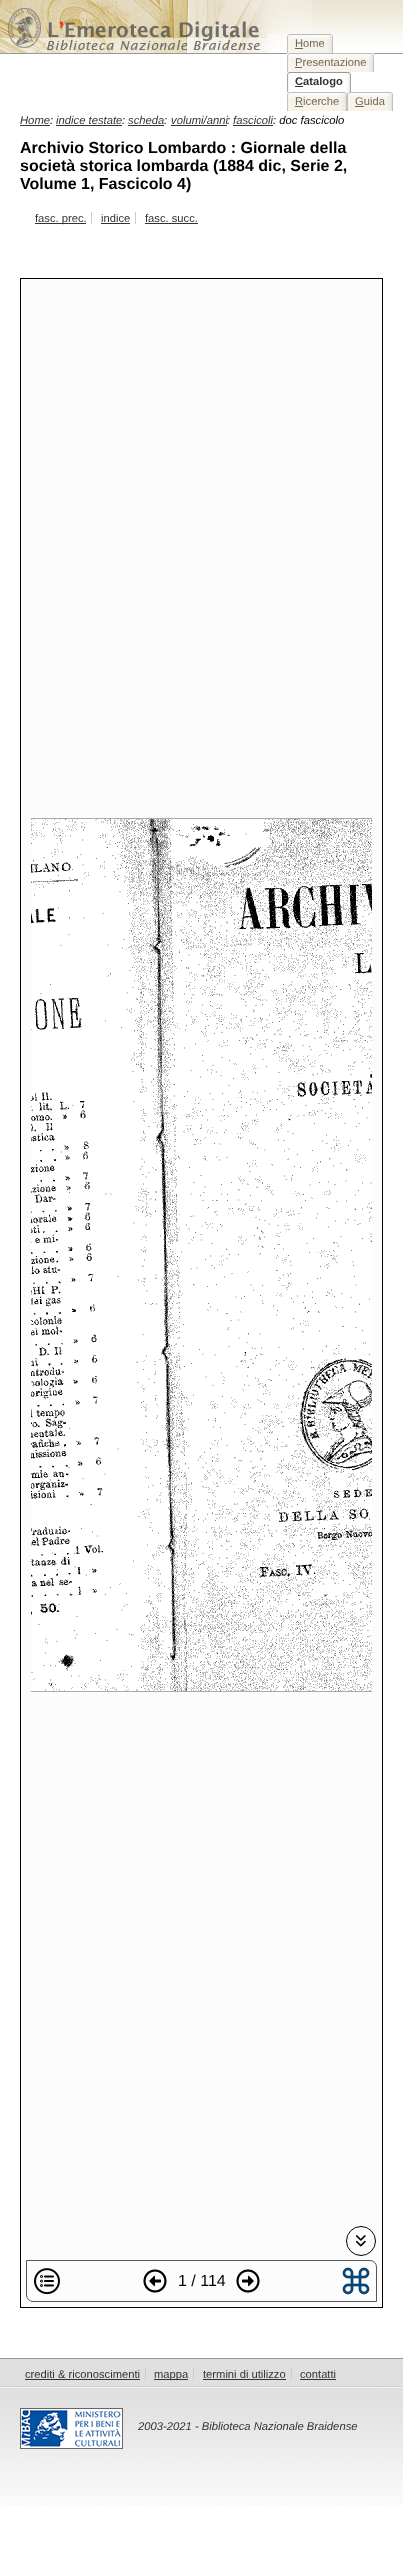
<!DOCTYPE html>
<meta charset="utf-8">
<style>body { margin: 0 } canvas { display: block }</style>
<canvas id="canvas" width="403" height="2567"></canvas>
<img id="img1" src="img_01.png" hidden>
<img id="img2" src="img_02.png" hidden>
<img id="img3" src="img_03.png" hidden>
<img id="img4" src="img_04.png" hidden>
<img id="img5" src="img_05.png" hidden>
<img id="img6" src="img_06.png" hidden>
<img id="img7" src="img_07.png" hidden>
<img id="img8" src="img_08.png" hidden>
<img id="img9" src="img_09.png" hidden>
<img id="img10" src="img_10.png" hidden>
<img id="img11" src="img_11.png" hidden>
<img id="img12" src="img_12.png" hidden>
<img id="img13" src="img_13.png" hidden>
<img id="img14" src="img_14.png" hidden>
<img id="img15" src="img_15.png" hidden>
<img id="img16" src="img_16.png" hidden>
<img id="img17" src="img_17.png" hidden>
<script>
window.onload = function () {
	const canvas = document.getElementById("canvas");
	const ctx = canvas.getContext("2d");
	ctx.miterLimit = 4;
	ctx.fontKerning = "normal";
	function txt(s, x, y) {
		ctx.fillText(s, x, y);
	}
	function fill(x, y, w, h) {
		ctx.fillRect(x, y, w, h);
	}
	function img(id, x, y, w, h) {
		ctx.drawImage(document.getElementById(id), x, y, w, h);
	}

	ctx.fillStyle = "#FFFFFF";
	fill(0, 0, 403, 2567);
	img("img1", 0, 0, 403, 54);
	img("img2", 0, 0, 312, 53);
	img("img3", 287, 34, 3, 19);
	img("img4", 290, 34, 43, 19);
	ctx.fillStyle = "#776655";
	fill(295, 48, 8, 1);
	img("img3", 287, 53, 3, 19);
	img("img5", 290, 53, 84, 19);
	fill(295, 67, 7, 1);
	img("img6", 287, 72, 3, 20);
	img("img7", 290, 72, 61, 20);
	ctx.fillStyle = "#333333";
	fill(295, 86, 8, 1);
	img("img3", 287, 92, 3, 19);
	img("img8", 290, 92, 57, 19);
	ctx.fillStyle = "#776655";
	fill(295, 106, 8, 1);
	img("img3", 347, 92, 3, 19);
	img("img4", 350, 92, 43, 19);
	fill(355, 106, 9, 1);
	ctx.fillStyle = "#333333";
	fill(20, 125, 30, 1);
	fill(56, 125, 66, 1);
	fill(128, 125, 36, 1);
	fill(171, 125, 56, 1);
	fill(233, 125, 40, 1);
	ctx.fillStyle = "#CCCCCC";
	fill(91, 212, 1, 12);
	ctx.fillStyle = "#333333";
	fill(35, 223, 51, 1);
	ctx.fillStyle = "#CCCCCC";
	fill(135, 212, 1, 12);
	ctx.fillStyle = "#333333";
	fill(101, 223, 29, 1);
	fill(145, 223, 53, 1);
	ctx.strokeStyle = "#000000";
	ctx.strokeRect(20.5, 278.5, 362, 2029);
	ctx.fillStyle = "#FCFCFC";
	fill(21, 279, 361, 2028);
	ctx.save();
	ctx.beginPath();
	ctx.rect(31, 289, 341, 1961);
	ctx.clip();
	ctx.strokeStyle = "#A9A9A9";
	ctx.strokeRect(-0.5, 818.5, 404, 873);
	ctx.restore();
	img("img9", 31, 819, 341, 872);
	ctx.beginPath();
	ctx.roundRect(26.5, 2260.5, 350, 41, [0, 6.5, 0, 6.5]);
	ctx.strokeStyle = "#555555";
	ctx.stroke();
	img("img10", 34, 2268, 26, 27);
	img("img11", 143, 2269, 24, 24);
	img("img12", 236, 2269, 24, 24);
	ctx.beginPath();
	ctx.arc(361, 2241, 14.5, 0, Math.PI * 2);
	ctx.strokeStyle = "#000000";
	ctx.stroke();
	img("img13", 355, 2235, 11, 12);
	img("img14", 342, 2267, 28, 28);
	img("img15", 0, 2359, 403, 146);
	ctx.fillStyle = "#999999";
	fill(0, 2358, 403, 1);
	img("img16", 0, 2386, 403, 2);
	ctx.fillStyle = "#CCCCCC";
	fill(145, 2368, 1, 12);
	ctx.fillStyle = "#333333";
	fill(25, 2379, 115, 1);
	ctx.fillStyle = "#CCCCCC";
	fill(193, 2368, 1, 12);
	ctx.fillStyle = "#333333";
	fill(154, 2379, 34, 1);
	ctx.fillStyle = "#CCCCCC";
	fill(291, 2368, 1, 12);
	ctx.fillStyle = "#333333";
	fill(203, 2379, 83, 1);
	fill(300, 2379, 36, 1);
	ctx.strokeStyle = "#666666";
	ctx.strokeRect(20.5, 2408.5, 102, 40);
	img("img17", 21, 2409, 101, 39);
	ctx.font = "11.2px Liberation Sans";
	ctx.fillStyle = "#776655";
	txt("Home", 295, 47);
	txt("Presentazione", 295, 66);
	ctx.font = "bold 11.2px Liberation Sans";
	ctx.fillStyle = "#333333";
	txt("Catalogo", 295, 85);
	ctx.font = "11.2px Liberation Sans";
	ctx.fillStyle = "#776655";
	txt("Ricerche", 295, 105);
	txt("Guida", 355, 105);
	ctx.font = "italic 11.25px Liberation Sans";
	ctx.fillStyle = "#333333";
	txt("Home", 20, 124);
	ctx.fillStyle = "#000000";
	txt(":", 50, 124);
	ctx.fillStyle = "#333333";
	txt("indice testate", 56, 124);
	ctx.fillStyle = "#000000";
	txt(":", 122, 124);
	ctx.fillStyle = "#333333";
	txt("scheda", 128, 124);
	ctx.fillStyle = "#000000";
	txt(":", 164, 124);
	ctx.fillStyle = "#333333";
	txt("volumi/anni", 171, 124);
	ctx.fillStyle = "#000000";
	txt(":", 227, 124);
	ctx.fillStyle = "#333333";
	txt("fascicoli", 233, 124);
	ctx.fillStyle = "#000000";
	txt(": doc fascicolo", 273, 124);
	ctx.font = "bold 16px Liberation Sans";
	txt("Archivio Storico Lombardo : Giornale della", 20, 153);
	txt("società storica lombarda (1884 dic, Serie 2,", 20, 171);
	txt("Volume 1, Fascicolo 4)", 20, 189);
	ctx.font = "11.2px Liberation Sans";
	ctx.fillStyle = "#333333";
	txt("fasc. prec.", 35, 222);
	txt("indice", 101, 222);
	txt("fasc. succ.", 145, 222);
	ctx.font = "16px Liberation Sans";
	ctx.fillStyle = "#000000";
	txt("1 / 114", 178, 2286);
	ctx.font = "11.2px Liberation Sans";
	ctx.fillStyle = "#333333";
	txt("crediti & riconoscimenti", 25, 2378);
	txt("mappa", 154, 2378);
	txt("termini di utilizzo", 203, 2378);
	txt("contatti", 300, 2378);
	ctx.font = "italic 11.25px Liberation Sans";
	txt("2003-2021 - Biblioteca Nazionale Braidense", 138, 2430);
};
</script>
